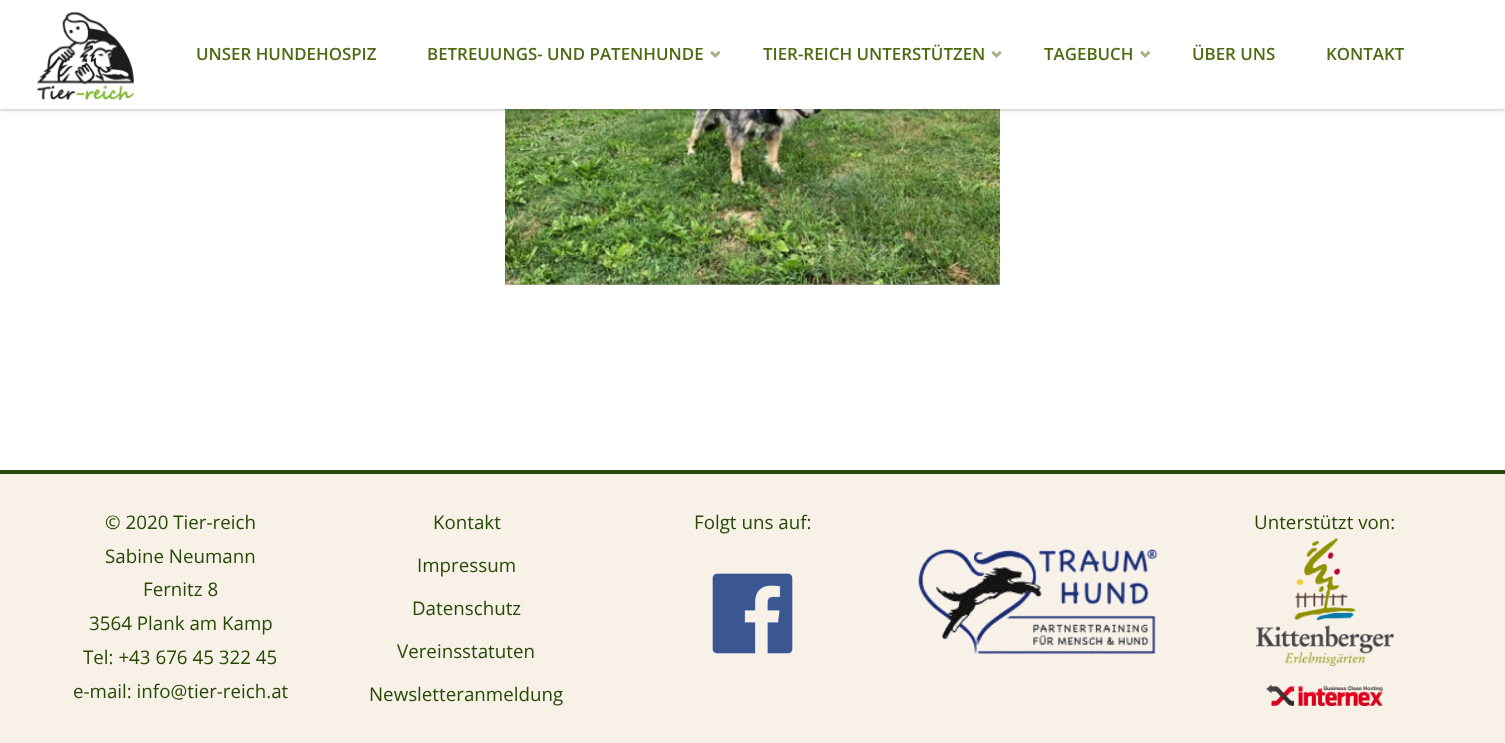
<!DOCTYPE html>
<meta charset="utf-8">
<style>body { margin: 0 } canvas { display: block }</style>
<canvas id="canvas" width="1505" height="743"></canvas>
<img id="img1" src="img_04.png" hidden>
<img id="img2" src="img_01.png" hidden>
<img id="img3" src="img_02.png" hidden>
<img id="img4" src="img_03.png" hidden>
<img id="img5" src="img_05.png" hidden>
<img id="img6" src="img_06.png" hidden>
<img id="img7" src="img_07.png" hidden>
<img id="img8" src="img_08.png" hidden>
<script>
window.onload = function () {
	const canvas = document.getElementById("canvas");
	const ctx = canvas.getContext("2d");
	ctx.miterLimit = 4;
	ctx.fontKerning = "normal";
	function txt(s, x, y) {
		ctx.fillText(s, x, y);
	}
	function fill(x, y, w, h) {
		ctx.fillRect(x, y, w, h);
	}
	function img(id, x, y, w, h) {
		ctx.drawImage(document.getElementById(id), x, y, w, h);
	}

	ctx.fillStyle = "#F7F1E8";
	fill(0, 0, 1505, 743);
	ctx.fillStyle = "#FFFFFF";
	fill(0, 109, 1505, 361);
	ctx.fillStyle = "#B3B3B3";
	fill(505, 284, 495, 1);
	img("img1", 505, 109, 495, 176);
	ctx.fillStyle = "rgba(0, 0, 0, 0.2)";
	ctx.filter = "blur(2px)";
	ctx.beginPath();
	ctx.rect(0, 0, 1505, 109);
	ctx.fill();
	ctx.filter = "none";
	ctx.filter = "blur(2px)";
	ctx.beginPath();
	ctx.rect(0, 0, 1505, 109);
	ctx.fill();
	ctx.filter = "none";
	ctx.fillStyle = "#FFFFFF";
	fill(0, 0, 1505, 109);
	img("img2", 37, 12, 97, 88);
	img("img3", 710, 50, 11, 8);
	img("img4", 991, 50, 11, 8);
	img("img3", 1140, 50, 11, 8);
	ctx.fillStyle = "#264905";
	fill(0, 470, 1505, 4);
	img("img5", 712, 573, 81, 81);
	img("img6", 1256, 538, 138, 128);
	img("img7", 1266, 684, 117, 22);
	img("img8", 918, 548, 240, 106);
	ctx.font = "600 16.9px Open Sans";
	ctx.fillStyle = "#4D6B12";
	txt("UNSER HUNDEHOSPIZ", 196, 60);
	txt("BETREUUNGS- UND PATENHUNDE", 427, 60);
	txt("TIER-REICH UNTERSTÜTZEN", 763, 60);
	txt("TAGEBUCH", 1044, 60);
	txt("ÜBER UNS", 1192, 60);
	txt("KONTAKT", 1326, 60);
	ctx.font = "18.75px Open Sans";
	ctx.fillStyle = "#264905";
	txt("© 2020 Tier-reich", 105, 529);
	txt("Sabine Neumann", 105, 563);
	txt("Fernitz 8", 143, 596);
	txt("3564 Plank am Kamp", 89, 630);
	txt("Tel: +43 676 45 322 45", 83, 664);
	txt("e-mail: info@tier-reich.at", 73, 698);
	txt("Kontakt", 433, 529);
	txt("Impressum", 417, 572);
	txt("Datenschutz", 412, 615);
	txt("Vereinsstatuten", 397, 658);
	txt("Newsletteranmeldung", 369, 701);
	txt("Folgt uns auf:", 694, 529);
	txt("Unterstützt von:", 1254, 529);
};
</script>
